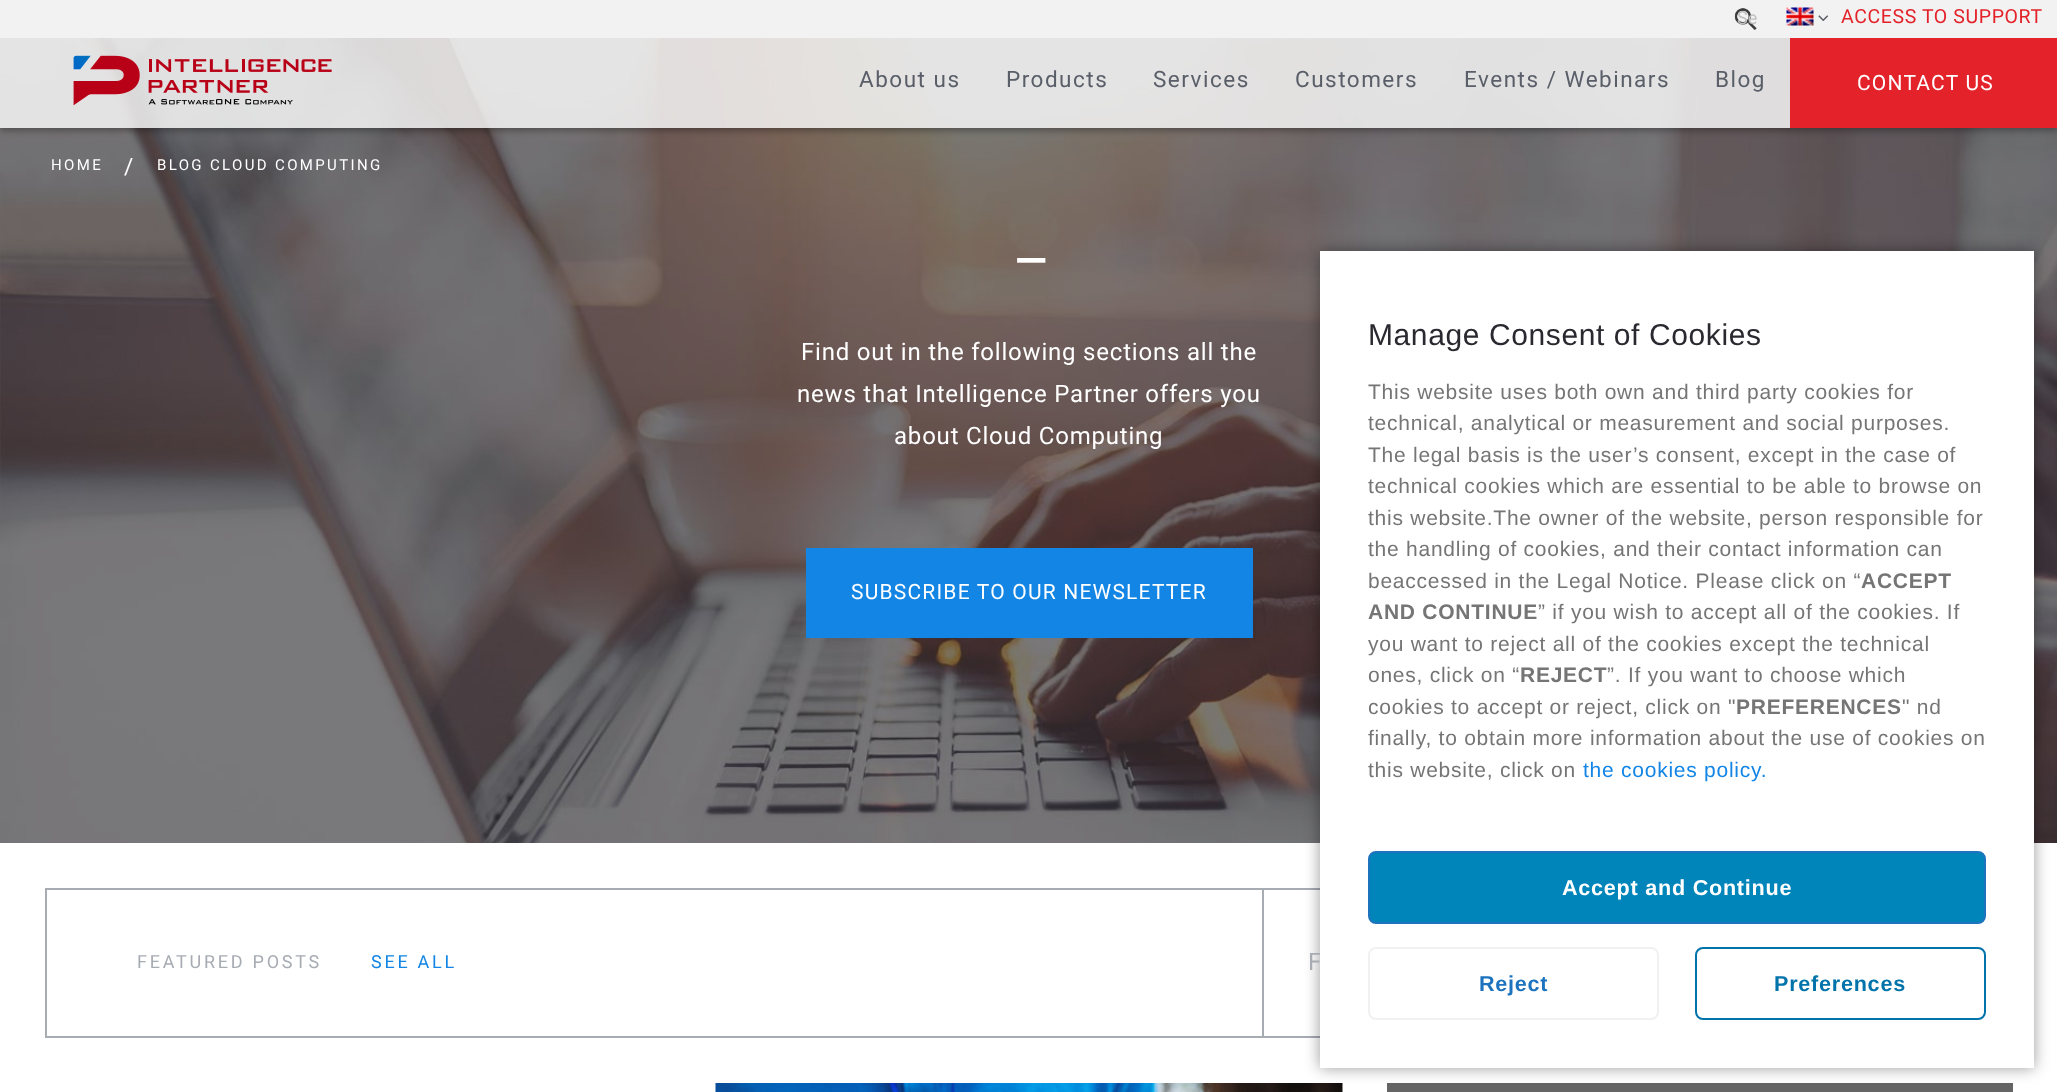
<!DOCTYPE html>
<meta charset="utf-8">
<style>body { margin: 0 } canvas { display: block }</style>
<canvas id="canvas" width="2057" height="1092"></canvas>
<img id="img1" src="img_05.png" hidden>
<img id="img2" src="img_01.png" hidden>
<img id="img3" src="img_02.png" hidden>
<img id="img4" src="img_03.png" hidden>
<img id="img5" src="img_04.png" hidden>
<img id="img6" src="img_06.png" hidden>
<script>
window.onload = function () {
	const canvas = document.getElementById("canvas");
	const ctx = canvas.getContext("2d");
	ctx.miterLimit = 4;
	ctx.fontKerning = "normal";
	function txt(s, x, y) {
		ctx.fillText(s, x, y);
	}
	function fill(x, y, w, h) {
		ctx.fillRect(x, y, w, h);
	}
	function img(id, x, y, w, h) {
		ctx.drawImage(document.getElementById(id), x, y, w, h);
	}

	ctx.fillStyle = "#FFFFFF";
	fill(0, 0, 2057, 1092);
	ctx.fillStyle = "#29292F";
	fill(0, 38, 2057, 805);
	img("img1", 0, 38, 2057, 805);
	ctx.save();
	ctx.beginPath();
	ctx.moveTo(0, 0);
	ctx.lineTo(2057, 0);
	ctx.lineTo(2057, 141);
	ctx.lineTo(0, 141);
	ctx.closePath();
	ctx.moveTo(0, 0);
	ctx.lineTo(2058, 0);
	ctx.lineTo(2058, 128);
	ctx.lineTo(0, 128);
	ctx.closePath();
	ctx.clip("evenodd");
	ctx.fillStyle = "rgba(0, 0, 0, 0.3)";
	ctx.filter = "blur(3px)";
	ctx.beginPath();
	ctx.rect(0, 3, 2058, 128);
	ctx.fill();
	ctx.filter = "none";
	ctx.restore();
	ctx.fillStyle = "#F2F2F2";
	fill(0, 0, 2057, 38);
	img("img2", 1734, 8, 23, 22);
	img("img3", 1786, 7, 28, 19);
	img("img4", 1818, 15, 10, 6);
	ctx.fillStyle = "rgba(255, 255, 255, 0.8)";
	fill(0, 38, 1790, 90);
	img("img5", 73, 55, 259, 51);
	ctx.fillStyle = "#E3222A";
	fill(1790, 38, 267, 90);
	ctx.fillStyle = "#1285E5";
	fill(806, 548, 447, 90);
	ctx.strokeStyle = "#A7ABB2";
	ctx.lineWidth = 2;
	ctx.strokeRect(46, 889, 1966, 148);
	ctx.fillStyle = "#A7ABB2";
	fill(1262, 890, 2, 147);
	img("img6", 715, 1083, 628, 9);
	ctx.fillStyle = "#656565";
	fill(1387, 1083, 626, 9);
	ctx.fillStyle = "rgba(0, 0, 0, 0.4)";
	ctx.filter = "blur(7.5px)";
	ctx.beginPath();
	ctx.rect(1320, 251, 714, 817);
	ctx.fill();
	ctx.filter = "none";
	ctx.font = "18px Roboto";
	ctx.fillStyle = "#BFBFBF";
	txt("Se", 1737, 24);
	ctx.letterSpacing = "0.6px";
	ctx.font = "19.5px Roboto";
	ctx.fillStyle = "#E3222A";
	txt("ACCESS TO SUPPORT", 1841, 23);
	ctx.letterSpacing = "1.5px";
	ctx.font = "22.5px Roboto";
	ctx.fillStyle = "#595E68";
	txt("About us", 859, 87);
	txt("Products", 1006, 87);
	txt("Services", 1153, 87);
	txt("Customers", 1295, 87);
	txt("Events / Webinars", 1464, 87);
	txt("Blog", 1715, 87);
	ctx.letterSpacing = "1.2px";
	ctx.font = "21px Roboto";
	ctx.fillStyle = "#FFFFFF";
	txt("CONTACT US", 1857, 90);
	ctx.letterSpacing = "2.35px";
	ctx.font = "15px Roboto";
	txt("HOME", 51, 170);
	ctx.font = "22.5px Roboto";
	txt("/", 124, 174);
	ctx.font = "15px Roboto";
	txt("BLOG CLOUD COMPUTING", 157, 170);
	ctx.letterSpacing = "1.2px";
	ctx.font = "63px Roboto";
	txt("_", 1017, 258);
	ctx.letterSpacing = "0.8px";
	ctx.font = "24px Roboto";
	txt("Find out in the following sections all the", 801, 360);
	txt("news that Intelligence Partner offers you", 797, 402);
	txt("about Cloud Computing", 894, 444);
	ctx.letterSpacing = "1.2px";
	ctx.font = "21px Roboto";
	txt("SUBSCRIBE TO OUR NEWSLETTER", 851, 599);
	ctx.letterSpacing = "2.75px";
	ctx.font = "18px Roboto";
	ctx.fillStyle = "#A7ABB2";
	txt("FEATURED POSTS", 137, 968);
	ctx.fillStyle = "#1285E5";
	txt("SEE ALL", 371, 968);
	ctx.letterSpacing = "0.8px";
	ctx.font = "24px Roboto";
	ctx.fillStyle = "#A7ABB2";
	txt("F", 1308, 970);
	ctx.fillStyle = "#FFFFFF";
	fill(1320, 251, 714, 817);
	ctx.letterSpacing = "0.6px";
	ctx.font = "30px Liberation Sans";
	ctx.fillStyle = "#29292F";
	txt("Manage Consent of Cookies", 1368, 345);
	ctx.letterSpacing = "0.75px";
	ctx.font = "21px Liberation Sans";
	ctx.fillStyle = "#757575";
	txt("This website uses both own and third party cookies for", 1368, 399);
	txt("technical, analytical or measurement and social purposes.", 1368, 430);
	txt("The legal basis is the user’s consent, except in the case of", 1368, 462);
	txt("technical cookies which are essential to be able to browse on", 1368, 493);
	txt("this website.The owner of the website, person responsible for", 1368, 525);
	txt("the handling of cookies, and their contact information can", 1368, 556);
	txt("beaccessed in the Legal Notice. Please click on “", 1368, 588);
	ctx.font = "bold 21px Liberation Sans";
	txt("ACCEPT", 1861, 588);
	txt("AND CONTINUE", 1368, 619);
	ctx.font = "21px Liberation Sans";
	txt("” if you wish to accept all of the cookies. If", 1538, 619);
	txt("you want to reject all of the cookies except the technical", 1368, 651);
	txt("ones, click on “", 1368, 682);
	ctx.font = "bold 21px Liberation Sans";
	txt("REJECT", 1520, 682);
	ctx.font = "21px Liberation Sans";
	txt("”. If you want to choose which", 1607, 682);
	txt("cookies to accept or reject, click on \"", 1368, 714);
	ctx.font = "bold 21px Liberation Sans";
	txt("PREFERENCES", 1736, 714);
	ctx.font = "21px Liberation Sans";
	txt("\" nd", 1902, 714);
	txt("finally, to obtain more information about the use of cookies on", 1368, 745);
	txt("this website, click on", 1368, 777);
	ctx.fillStyle = "#1285E5";
	txt("the cookies policy.", 1583, 777);
	ctx.fillStyle = "#0085BA";
	ctx.beginPath();
	ctx.roundRect(1369, 852, 616, 71, 7);
	ctx.fill();
	ctx.strokeStyle = "#1E73BE";
	ctx.stroke();
	ctx.font = "bold 21.6px Liberation Sans";
	ctx.fillStyle = "#FFFFFF";
	txt("Accept and Continue", 1562, 895);
	ctx.beginPath();
	ctx.roundRect(1369, 948, 289, 71, 7);
	ctx.strokeStyle = "#F1F1F1";
	ctx.stroke();
	ctx.fillStyle = "#1E73BE";
	txt("Reject", 1479, 991);
	ctx.beginPath();
	ctx.roundRect(1696, 948, 289, 71, 7);
	ctx.strokeStyle = "#0073AA";
	ctx.stroke();
	ctx.fillStyle = "#0073AA";
	txt("Preferences", 1774, 991);
};
</script>
